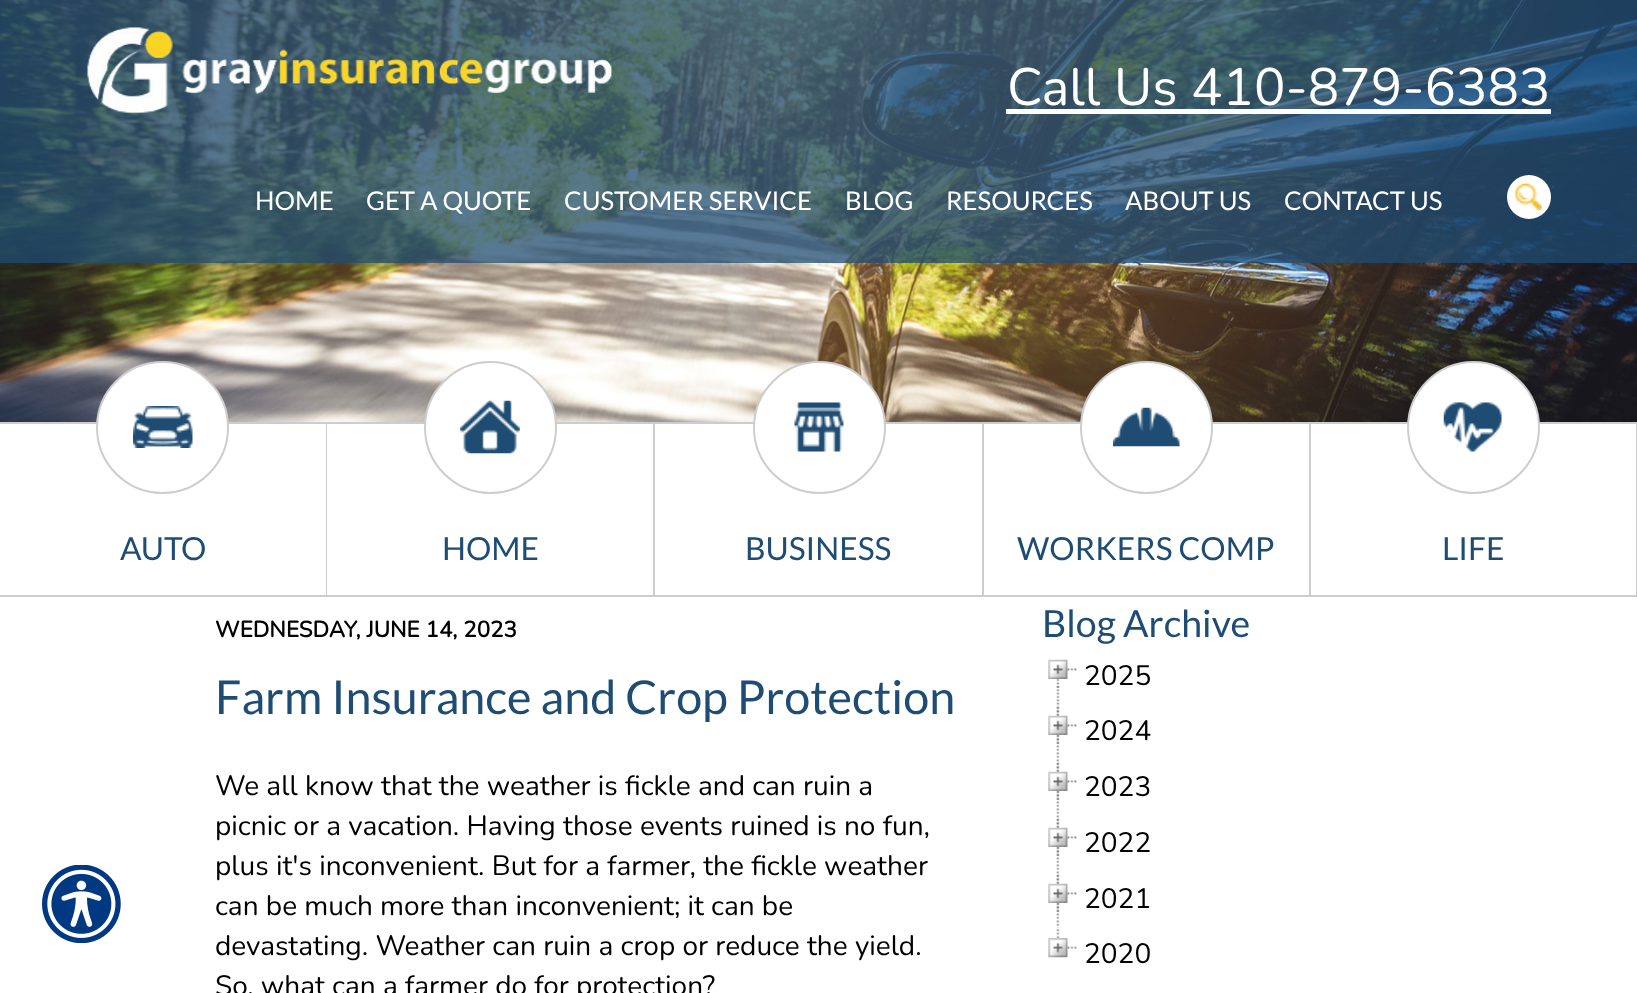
<!DOCTYPE html>
<meta charset="utf-8">
<style>body { margin: 0 } canvas { display: block }</style>
<canvas id="canvas" width="1637" height="993"></canvas>
<img id="img1" src="img_01.png" hidden>
<img id="img2" src="img_02.png" hidden>
<img id="img3" src="img_03.png" hidden>
<img id="img4" src="img_04.png" hidden>
<img id="img5" src="img_05.png" hidden>
<img id="img6" src="img_06.png" hidden>
<img id="img7" src="img_07.png" hidden>
<img id="img8" src="img_08.png" hidden>
<img id="img9" src="img_09.png" hidden>
<img id="img10" src="img_10.png" hidden>
<img id="img11" src="img_11.png" hidden>
<img id="img12" src="img_12.png" hidden>
<img id="img13" src="img_13.png" hidden>
<img id="img14" src="img_14.png" hidden>
<img id="img15" src="img_15.png" hidden>
<img id="img16" src="img_16.png" hidden>
<img id="img17" src="img_17.png" hidden>
<img id="img18" src="img_18.png" hidden>
<img id="img19" src="img_19.png" hidden>
<script>
window.onload = function () {
	const canvas = document.getElementById("canvas");
	const ctx = canvas.getContext("2d");
	ctx.miterLimit = 4;
	ctx.fontKerning = "normal";
	function txt(s, x, y) {
		ctx.fillText(s, x, y);
	}
	function fill(x, y, w, h) {
		ctx.fillRect(x, y, w, h);
	}
	function img(id, x, y, w, h) {
		ctx.drawImage(document.getElementById(id), x, y, w, h);
	}

	ctx.fillStyle = "#FFFFFF";
	fill(0, 0, 1637, 993);
	img("img1", 42, 865, 79, 78);
	img("img2", 0, 0, 1637, 422);
	ctx.fillStyle = "rgba(31, 76, 115, 0.75)";
	fill(0, 0, 1637, 263);
	img("img3", 87, 27, 526, 87);
	ctx.fillStyle = "#FFFFFF";
	fill(1006, 109, 545, 5);
	ctx.beginPath();
	ctx.arc(1529, 197, 22, 0, Math.PI * 2);
	ctx.fill();
	img("img4", 1514, 183, 28, 27);
	ctx.fillStyle = "#CDCDCD";
	fill(0, 422, 1637, 2);
	fill(326, 422, 1, 175);
	fill(0, 595, 327, 2);
	ctx.fillStyle = "#FFFFFF";
	ctx.beginPath();
	ctx.arc(162.5, 427.5, 65.5, 0, Math.PI * 2);
	ctx.fill();
	ctx.strokeStyle = "#CDCDCD";
	ctx.lineWidth = 2;
	ctx.stroke();
	img("img5", 133, 406, 60, 42);
	ctx.fillStyle = "#CDCDCD";
	fill(653, 422, 2, 175);
	fill(327, 595, 328, 2);
	ctx.fillStyle = "#FFFFFF";
	ctx.beginPath();
	ctx.arc(490.5, 427.5, 65.5, 0, Math.PI * 2);
	ctx.fill();
	ctx.stroke();
	img("img6", 460, 400, 60, 54);
	ctx.fillStyle = "#CDCDCD";
	fill(982, 422, 2, 175);
	fill(655, 595, 329, 2);
	ctx.fillStyle = "#FFFFFF";
	ctx.beginPath();
	ctx.arc(819.5, 427.5, 65.5, 0, Math.PI * 2);
	ctx.fill();
	ctx.stroke();
	img("img7", 794, 402, 50, 50);
	ctx.fillStyle = "#CDCDCD";
	fill(1309, 422, 2, 175);
	fill(984, 595, 327, 2);
	ctx.fillStyle = "#FFFFFF";
	ctx.beginPath();
	ctx.arc(1146.5, 427.5, 65.5, 0, Math.PI * 2);
	ctx.fill();
	ctx.stroke();
	img("img8", 1113, 407, 67, 40);
	ctx.fillStyle = "#CDCDCD";
	fill(1636, 422, 1, 175);
	fill(1311, 595, 326, 2);
	ctx.fillStyle = "#FFFFFF";
	ctx.beginPath();
	ctx.arc(1473.5, 427.5, 65.5, 0, Math.PI * 2);
	ctx.fill();
	ctx.stroke();
	img("img9", 1443, 402, 59, 50);
	img("img10", 1056, 686, 4, 19);
	img("img11", 1056, 668, 21, 20);
	img("img12", 1048, 659, 20, 20);
	img("img13", 1056, 705, 4, 57);
	img("img14", 1056, 706, 21, 38);
	img("img15", 1048, 715, 20, 20);
	img("img16", 1056, 761, 4, 57);
	img("img14", 1056, 762, 21, 38);
	img("img15", 1048, 771, 20, 20);
	img("img16", 1056, 817, 4, 57);
	img("img14", 1056, 818, 21, 38);
	img("img15", 1048, 827, 20, 20);
	img("img17", 1056, 873, 4, 55);
	img("img14", 1056, 874, 21, 38);
	img("img15", 1048, 883, 20, 20);
	img("img18", 1056, 928, 21, 21);
	img("img19", 1048, 938, 20, 20);
	ctx.font = "200 52.5px Nunito";
	txt("Call Us 410-879-6383", 1007, 105);
	ctx.font = "25.75px Lato";
	txt("HOME", 255, 210);
	txt("GET A QUOTE", 366, 210);
	txt("CUSTOMER SERVICE", 564, 210);
	txt("BLOG", 845, 210);
	txt("RESOURCES", 946, 210);
	txt("ABOUT US", 1125, 210);
	txt("CONTACT US", 1284, 210);
	ctx.font = "31.75px Lato";
	ctx.fillStyle = "#1F4C73";
	txt("AUTO", 120, 560);
	txt("HOME", 442, 560);
	txt("BUSINESS", 745, 560);
	txt("WORKERS COMP", 1017, 560);
	txt("LIFE", 1442, 560);
	ctx.font = "bold 22.4px Nunito";
	ctx.fillStyle = "#000000";
	txt("WEDNESDAY, JUNE 14, 2023", 215, 637);
	ctx.font = "46.7px Lato";
	ctx.fillStyle = "#1F4C73";
	txt("Farm Insurance and Crop Protection", 215, 714);
	ctx.font = "200 28px Nunito";
	ctx.fillStyle = "#000000";
	txt("We all know that the weather is fickle and can ruin a", 215, 795);
	txt("picnic or a vacation. Having those events ruined is no fun,", 215, 835);
	txt("plus it's inconvenient. But for a farmer, the fickle weather", 215, 875);
	txt("can be much more than inconvenient; it can be", 215, 915);
	txt("devastating. Weather can ruin a crop or reduce the yield.", 215, 955);
	txt("So, what can a farmer do for protection?", 215, 995);
	ctx.font = "37.5px Lato";
	ctx.fillStyle = "#1F4C73";
	txt("Blog Archive", 1042, 637);
	ctx.font = "200 28px Nunito";
	ctx.fillStyle = "#000000";
	txt("2025", 1084, 685);
	txt("2024", 1084, 740);
	txt("2023", 1084, 796);
	txt("2022", 1084, 852);
	txt("2021", 1084, 908);
	txt("2020", 1084, 963);
};
</script>
